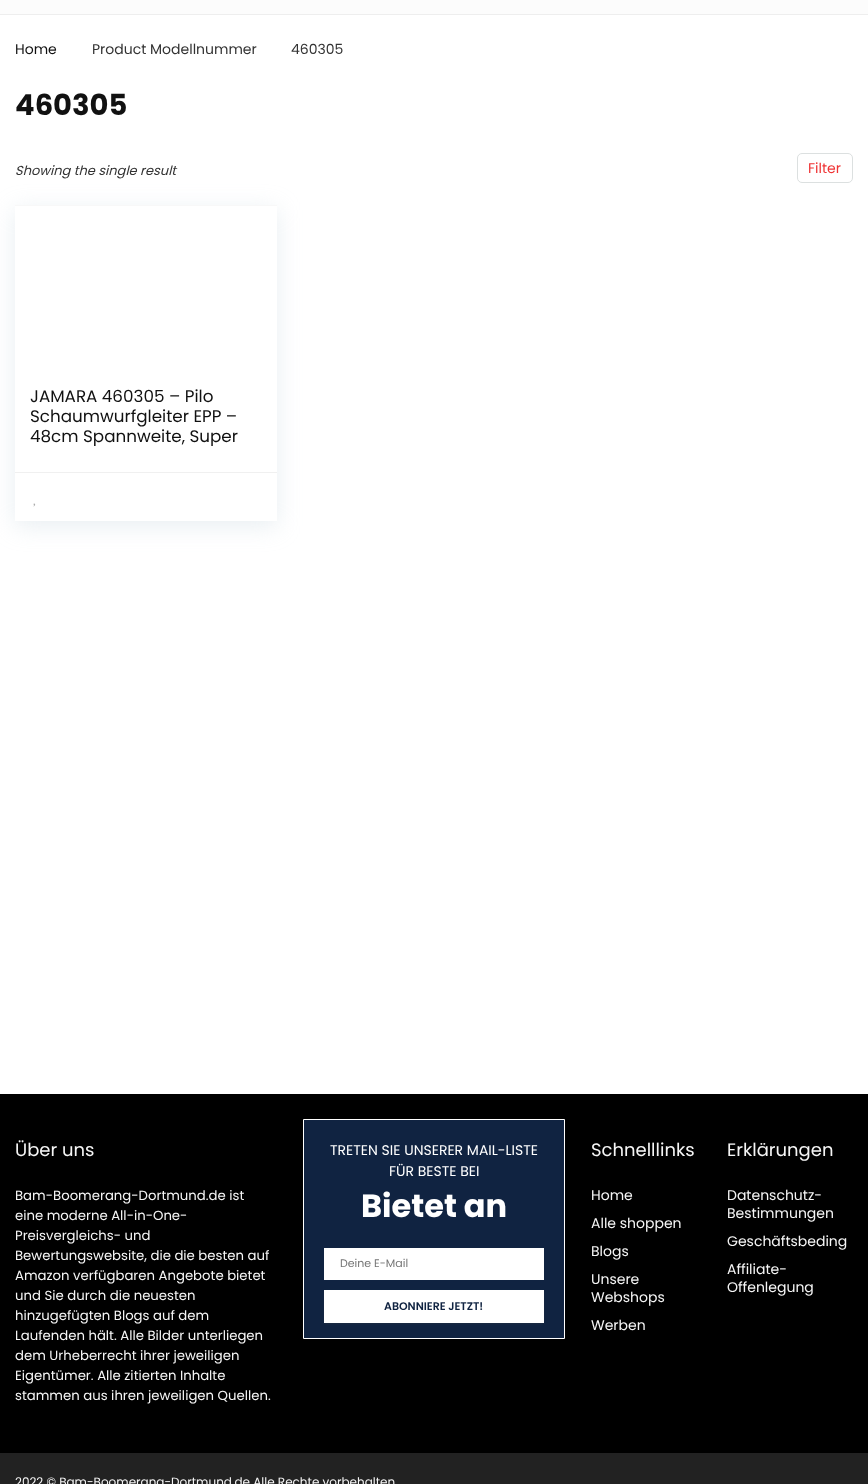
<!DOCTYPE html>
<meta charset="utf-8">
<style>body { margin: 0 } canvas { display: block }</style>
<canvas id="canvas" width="868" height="1484"></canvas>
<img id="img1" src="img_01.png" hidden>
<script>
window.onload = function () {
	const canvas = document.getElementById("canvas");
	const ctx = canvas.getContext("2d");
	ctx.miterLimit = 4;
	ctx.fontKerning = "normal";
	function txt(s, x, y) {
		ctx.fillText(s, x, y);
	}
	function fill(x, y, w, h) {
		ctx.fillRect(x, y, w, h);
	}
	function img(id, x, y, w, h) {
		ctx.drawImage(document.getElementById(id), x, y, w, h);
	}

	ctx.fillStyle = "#FFFFFF";
	fill(0, 0, 868, 1484);
	ctx.fillStyle = "#FCFCFC";
	fill(0, 0, 868, 14);
	ctx.fillStyle = "#EEEEEE";
	fill(0, 14, 868, 1);
	ctx.beginPath();
	ctx.roundRect(797.5, 153.5, 55, 29, 4.5);
	ctx.strokeStyle = "#DCE0E0";
	ctx.stroke();
	ctx.save();
	ctx.beginPath();
	ctx.moveTo(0, 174);
	ctx.lineTo(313, 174);
	ctx.lineTo(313, 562);
	ctx.lineTo(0, 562);
	ctx.closePath();
	ctx.moveTo(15, 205);
	ctx.lineTo(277, 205);
	ctx.lineTo(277, 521);
	ctx.lineTo(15, 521);
	ctx.closePath();
	ctx.clip("evenodd");
	ctx.fillStyle = "rgba(188, 207, 219, 0.35)";
	ctx.filter = "blur(11.5px)";
	ctx.beginPath();
	ctx.rect(15, 210, 262, 316);
	ctx.fill();
	ctx.filter = "none";
	ctx.restore();
	ctx.fillStyle = "#F8F8F8";
	fill(15, 205, 262, 1);
	ctx.fillStyle = "#F0F0F0";
	fill(15, 472, 262, 1);
	img("img1", 33, 503, 3, 4);
	ctx.fillStyle = "#000000";
	fill(0, 1094, 868, 359);
	ctx.fillStyle = "#102341";
	ctx.beginPath();
	ctx.rect(303.5, 1119.5, 261, 219);
	ctx.fill();
	ctx.strokeStyle = "#FFFFFF";
	ctx.stroke();
	ctx.fillStyle = "#FFFFFF";
	fill(324, 1248, 220, 32);
	ctx.fillStyle = "rgba(60, 64, 67, 0.3)";
	ctx.filter = "blur(1px)";
	ctx.beginPath();
	ctx.rect(324, 1291, 220, 33);
	ctx.fill();
	ctx.filter = "none";
	ctx.fillStyle = "#FFFFFF";
	fill(324, 1290, 220, 33);
	ctx.fillStyle = "#222222";
	fill(0, 1453, 868, 31);
	ctx.font = "14px Poppins";
	ctx.fillStyle = "#111111";
	txt("Home", 15, 54);
	ctx.fillStyle = "#333333";
	txt("Product Modellnummer", 92, 54);
	txt("460305", 291, 54);
	ctx.font = "bold 29px Poppins";
	ctx.fillStyle = "#111111";
	txt("460305", 15, 115);
	ctx.font = "italic 13px Poppins";
	ctx.fillStyle = "#333333";
	txt("Showing the single result", 15, 175);
	ctx.font = "14px Poppins";
	ctx.fillStyle = "#EF3435";
	txt("Filter", 808, 173);
	ctx.font = "16.75px Poppins";
	ctx.fillStyle = "#111111";
	txt("JAMARA 460305 – Pilo", 30, 402);
	txt("Schaumwurfgleiter EPP –", 30, 422);
	ctx.save();
	ctx.beginPath();
	ctx.rect(30, 386, 217, 60);
	ctx.clip();
	txt("48cm Spannweite, Super", 30, 442);
	ctx.restore();
	ctx.font = "18px Poppins";
	ctx.fillStyle = "#F5F5F5";
	txt("Über uns", 15, 1156);
	ctx.font = "13.25px Poppins";
	txt("Bam-Boomerang-Dortmund.de ist", 15, 1200);
	txt("eine moderne All-in-One-", 15, 1220);
	txt("Preisvergleichs- und", 15, 1240);
	txt("Bewertungswebsite, die die besten auf", 15, 1260);
	txt("Amazon verfügbaren Angebote bietet", 15, 1280);
	txt("und Sie durch die neuesten", 15, 1300);
	txt("hinzugefügten Blogs auf dem", 15, 1320);
	txt("Laufenden hält. Alle Bilder unterliegen", 15, 1340);
	txt("dem Urheberrecht ihrer jeweiligen", 15, 1360);
	txt("Eigentümer. Alle zitierten Inhalte", 15, 1380);
	txt("stammen aus ihren jeweiligen Quellen.", 15, 1400);
	ctx.font = "14px Poppins";
	ctx.fillStyle = "#FFFFFF";
	txt("TRETEN SIE UNSERER MAIL-LISTE", 330, 1155);
	txt("FÜR BESTE BEI", 389, 1176);
	ctx.font = "bold 32px Poppins";
	txt("Bietet an", 361, 1217);
	ctx.font = "11px Poppins";
	ctx.fillStyle = "#757575";
	txt("Deine E-Mail", 340, 1267);
	ctx.font = "600 11px Poppins";
	ctx.fillStyle = "#102341";
	txt("ABONNIERE JETZT!", 384, 1310);
	ctx.font = "18px Poppins";
	ctx.fillStyle = "#F5F5F5";
	txt("Schnelllinks", 591, 1156);
	ctx.font = "14px Poppins";
	txt("Home", 591, 1200);
	txt("Alle shoppen", 591, 1228);
	txt("Blogs", 591, 1256);
	txt("Unsere", 591, 1284);
	txt("Webshops", 591, 1302);
	txt("Werben", 591, 1330);
	ctx.font = "18px Poppins";
	txt("Erklärungen", 727, 1156);
	ctx.font = "14px Poppins";
	txt("Datenschutz-", 727, 1200);
	txt("Bestimmungen", 727, 1218);
	txt("Geschäftsbeding", 727, 1246);
	txt("Affiliate-", 727, 1274);
	txt("Offenlegung", 727, 1292);
	ctx.font = "12px Poppins";
	txt("2022 © Bam-Boomerang-Dortmund.de Alle Rechte vorbehalten", 15, 1486);
};
</script>
